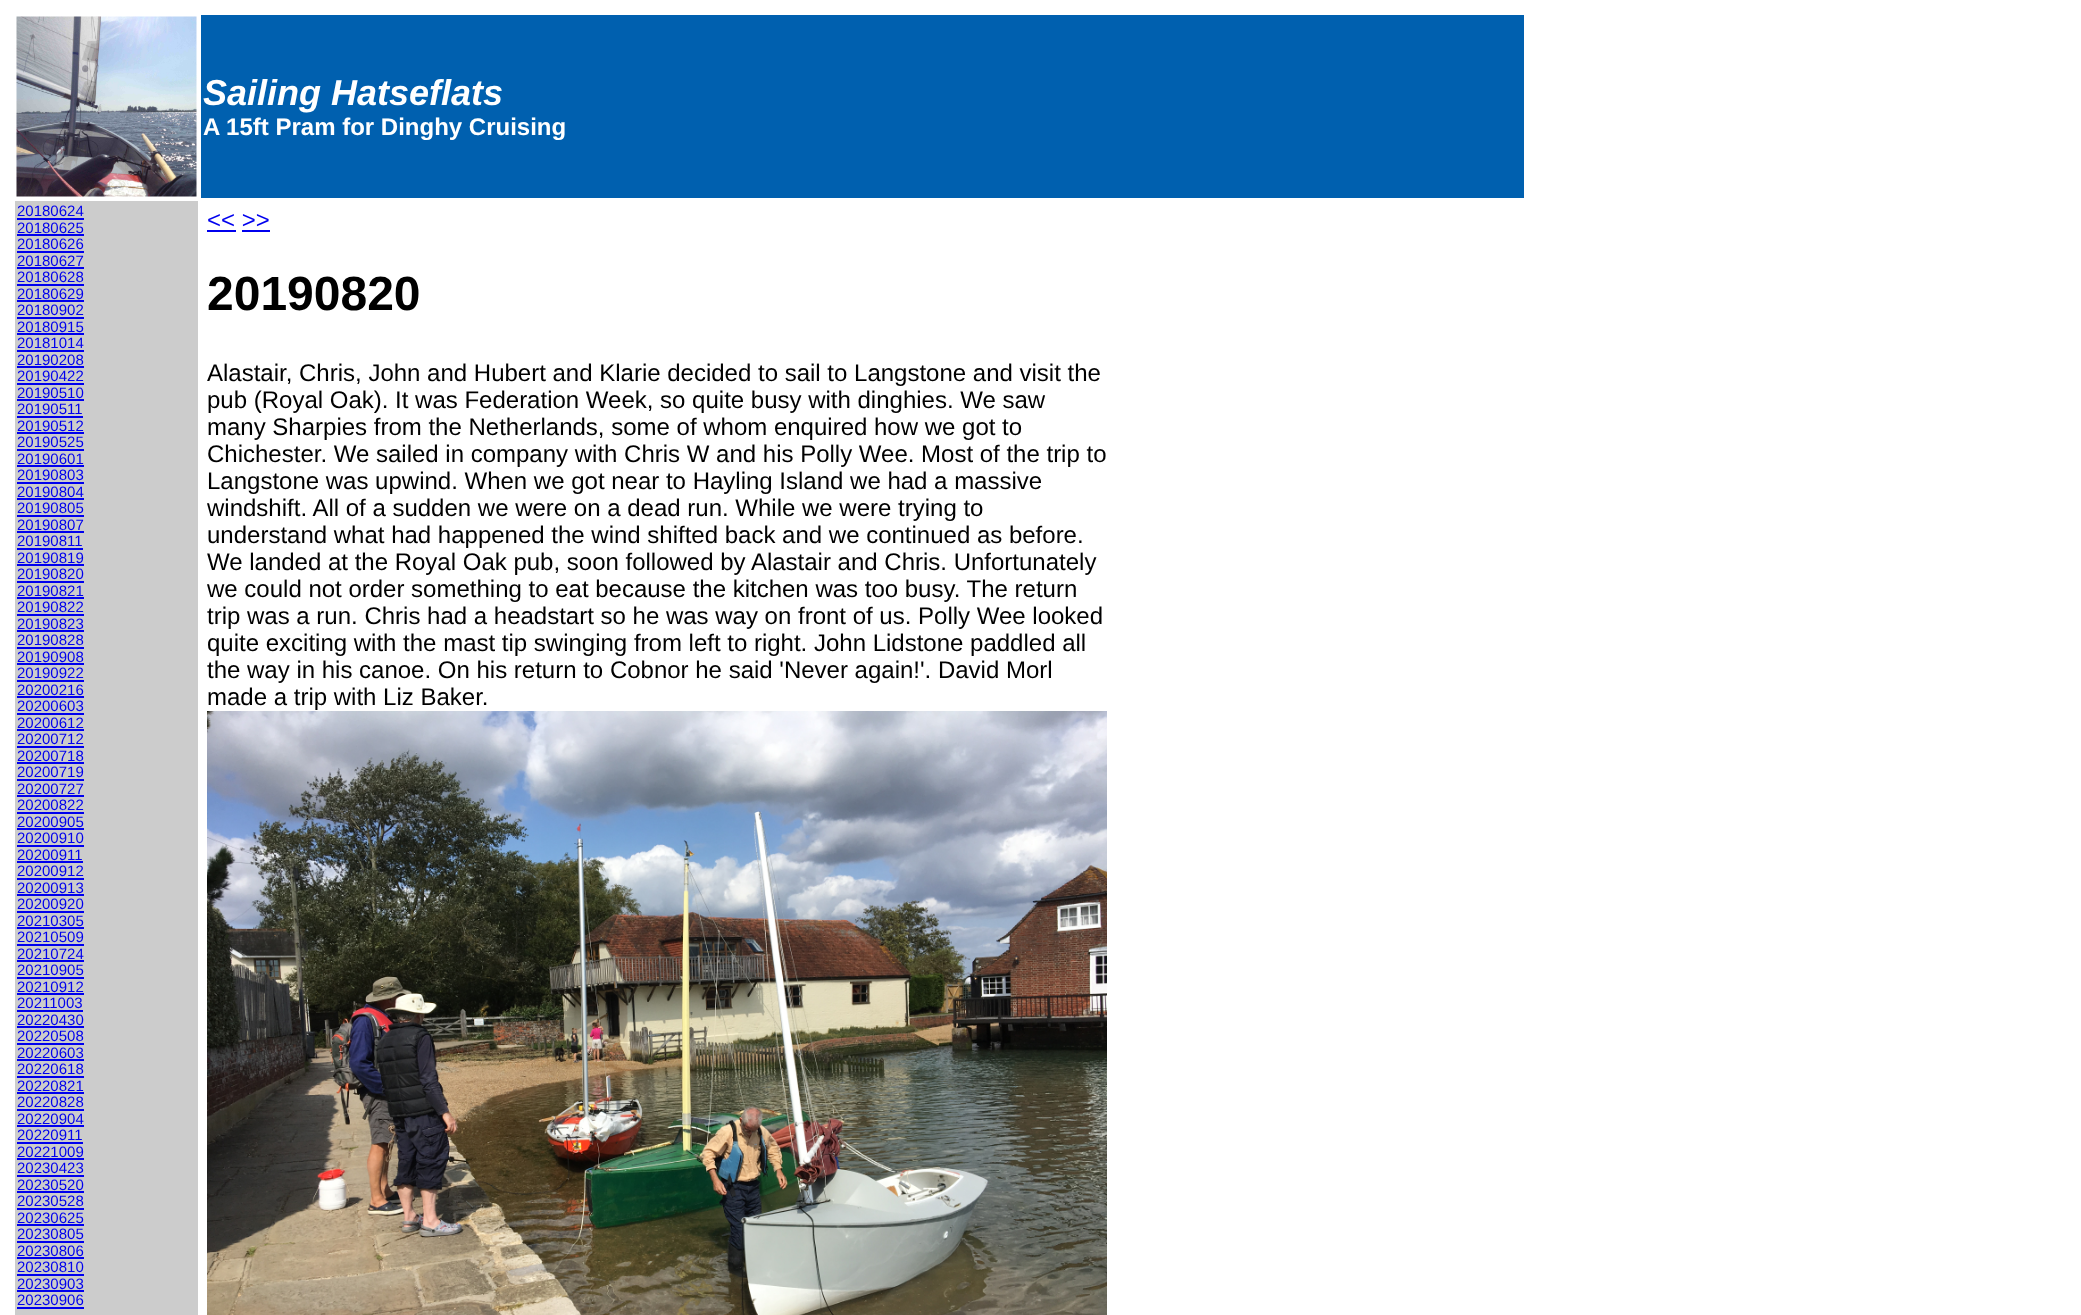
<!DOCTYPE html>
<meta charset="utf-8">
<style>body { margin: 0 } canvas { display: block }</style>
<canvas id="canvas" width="2081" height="1315"></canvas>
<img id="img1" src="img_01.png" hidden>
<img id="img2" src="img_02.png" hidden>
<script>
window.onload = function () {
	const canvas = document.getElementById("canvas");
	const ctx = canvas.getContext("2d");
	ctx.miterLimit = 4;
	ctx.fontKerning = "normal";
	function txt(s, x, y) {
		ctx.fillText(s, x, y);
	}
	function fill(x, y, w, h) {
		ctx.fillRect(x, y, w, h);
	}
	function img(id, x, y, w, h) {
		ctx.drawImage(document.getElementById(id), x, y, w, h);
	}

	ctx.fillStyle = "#FFFFFF";
	fill(0, 0, 2081, 1315);
	img("img1", 16, 16, 181, 181);
	ctx.fillStyle = "#0060AF";
	fill(201, 15, 1323, 183);
	ctx.fillStyle = "#CCCCCC";
	fill(15, 201, 183, 1114);
	ctx.fillStyle = "#0000EE";
	fill(17, 218, 67, 2);
	fill(17, 234, 67, 2);
	fill(17, 251, 67, 2);
	fill(17, 267, 67, 2);
	fill(17, 284, 67, 2);
	fill(17, 300, 67, 2);
	fill(17, 317, 67, 2);
	fill(17, 333, 67, 2);
	fill(17, 350, 67, 2);
	fill(17, 366, 67, 2);
	fill(17, 383, 67, 2);
	fill(17, 399, 67, 2);
	fill(17, 416, 66, 2);
	fill(17, 432, 67, 2);
	fill(17, 449, 67, 2);
	fill(17, 465, 67, 2);
	fill(17, 482, 67, 2);
	fill(17, 498, 67, 2);
	fill(17, 515, 67, 2);
	fill(17, 531, 67, 2);
	fill(17, 548, 66, 2);
	fill(17, 564, 67, 2);
	fill(17, 581, 67, 2);
	fill(17, 597, 67, 2);
	fill(17, 614, 67, 2);
	fill(17, 630, 67, 2);
	fill(17, 647, 67, 2);
	fill(17, 663, 67, 2);
	fill(17, 680, 67, 2);
	fill(17, 696, 67, 2);
	fill(17, 713, 67, 2);
	fill(17, 729, 67, 2);
	fill(17, 746, 67, 2);
	fill(17, 762, 67, 2);
	fill(17, 779, 67, 2);
	fill(17, 795, 67, 2);
	fill(17, 812, 67, 2);
	fill(17, 828, 67, 2);
	fill(17, 845, 67, 2);
	fill(17, 861, 66, 2);
	fill(17, 878, 67, 2);
	fill(17, 894, 67, 2);
	fill(17, 911, 67, 2);
	fill(17, 927, 67, 2);
	fill(17, 944, 67, 2);
	fill(17, 960, 67, 2);
	fill(17, 977, 67, 2);
	fill(17, 993, 67, 2);
	fill(17, 1010, 66, 2);
	fill(17, 1026, 67, 2);
	fill(17, 1043, 67, 2);
	fill(17, 1059, 67, 2);
	fill(17, 1076, 67, 2);
	fill(17, 1092, 67, 2);
	fill(17, 1109, 67, 2);
	fill(17, 1125, 67, 2);
	fill(17, 1142, 66, 2);
	fill(17, 1158, 67, 2);
	fill(17, 1175, 67, 2);
	fill(17, 1191, 67, 2);
	fill(17, 1208, 67, 2);
	fill(17, 1224, 67, 2);
	fill(17, 1241, 67, 2);
	fill(17, 1257, 67, 2);
	fill(17, 1274, 67, 2);
	fill(17, 1290, 67, 2);
	fill(17, 1307, 67, 2);
	fill(207, 230, 29, 2);
	fill(242, 230, 28, 2);
	img("img2", 207, 711, 900, 604);
	ctx.font = "italic bold 36px Liberation Sans";
	ctx.fillStyle = "#FFFFFF";
	txt("Sailing Hatseflats", 203, 105);
	ctx.font = "bold 24px Liberation Sans";
	txt("A 15ft Pram for Dinghy Cruising", 203, 135);
	ctx.font = "15px Liberation Sans";
	ctx.fillStyle = "#0000EE";
	txt("20180624", 17, 216);
	txt("20180625", 17, 233);
	txt("20180626", 17, 249);
	txt("20180627", 17, 266);
	txt("20180628", 17, 282);
	txt("20180629", 17, 299);
	txt("20180902", 17, 315);
	txt("20180915", 17, 332);
	txt("20181014", 17, 348);
	txt("20190208", 17, 365);
	txt("20190422", 17, 381);
	txt("20190510", 17, 398);
	txt("20190511", 17, 414);
	txt("20190512", 17, 431);
	txt("20190525", 17, 447);
	txt("20190601", 17, 464);
	txt("20190803", 17, 480);
	txt("20190804", 17, 497);
	txt("20190805", 17, 513);
	txt("20190807", 17, 530);
	txt("20190811", 17, 546);
	txt("20190819", 17, 563);
	txt("20190820", 17, 579);
	txt("20190821", 17, 596);
	txt("20190822", 17, 612);
	txt("20190823", 17, 629);
	txt("20190828", 17, 645);
	txt("20190908", 17, 662);
	txt("20190922", 17, 678);
	txt("20200216", 17, 695);
	txt("20200603", 17, 711);
	txt("20200612", 17, 728);
	txt("20200712", 17, 744);
	txt("20200718", 17, 761);
	txt("20200719", 17, 777);
	txt("20200727", 17, 794);
	txt("20200822", 17, 810);
	txt("20200905", 17, 827);
	txt("20200910", 17, 843);
	txt("20200911", 17, 860);
	txt("20200912", 17, 876);
	txt("20200913", 17, 893);
	txt("20200920", 17, 909);
	txt("20210305", 17, 926);
	txt("20210509", 17, 942);
	txt("20210724", 17, 959);
	txt("20210905", 17, 975);
	txt("20210912", 17, 992);
	txt("20211003", 17, 1008);
	txt("20220430", 17, 1025);
	txt("20220508", 17, 1041);
	txt("20220603", 17, 1058);
	txt("20220618", 17, 1074);
	txt("20220821", 17, 1091);
	txt("20220828", 17, 1107);
	txt("20220904", 17, 1124);
	txt("20220911", 17, 1140);
	txt("20221009", 17, 1157);
	txt("20230423", 17, 1173);
	txt("20230520", 17, 1190);
	txt("20230528", 17, 1206);
	txt("20230625", 17, 1223);
	txt("20230805", 17, 1239);
	txt("20230806", 17, 1256);
	txt("20230810", 17, 1272);
	txt("20230903", 17, 1289);
	txt("20230906", 17, 1305);
	ctx.font = "24px Liberation Sans";
	txt("<< >>", 207, 228);
	ctx.font = "bold 48px Liberation Sans";
	ctx.fillStyle = "#000000";
	txt("20190820", 207, 310);
	ctx.font = "24px Liberation Sans";
	txt("Alastair, Chris, John and Hubert and Klarie decided to sail to Langstone and visit the", 207, 381);
	txt("pub (Royal Oak). It was Federation Week, so quite busy with dinghies. We saw", 207, 408);
	txt("many Sharpies from the Netherlands, some of whom enquired how we got to", 207, 435);
	txt("Chichester. We sailed in company with Chris W and his Polly Wee. Most of the trip to", 207, 462);
	txt("Langstone was upwind. When we got near to Hayling Island we had a massive", 207, 489);
	txt("windshift. All of a sudden we were on a dead run. While we were trying to", 207, 516);
	txt("understand what had happened the wind shifted back and we continued as before.", 207, 543);
	txt("We landed at the Royal Oak pub, soon followed by Alastair and Chris. Unfortunately", 207, 570);
	txt("we could not order something to eat because the kitchen was too busy. The return", 207, 597);
	txt("trip was a run. Chris had a headstart so he was way on front of us. Polly Wee looked", 207, 624);
	txt("quite exciting with the mast tip swinging from left to right. John Lidstone paddled all", 207, 651);
	txt("the way in his canoe. On his return to Cobnor he said 'Never again!'. David Morl", 207, 678);
	txt("made a trip with Liz Baker.", 207, 705);
};
</script>
